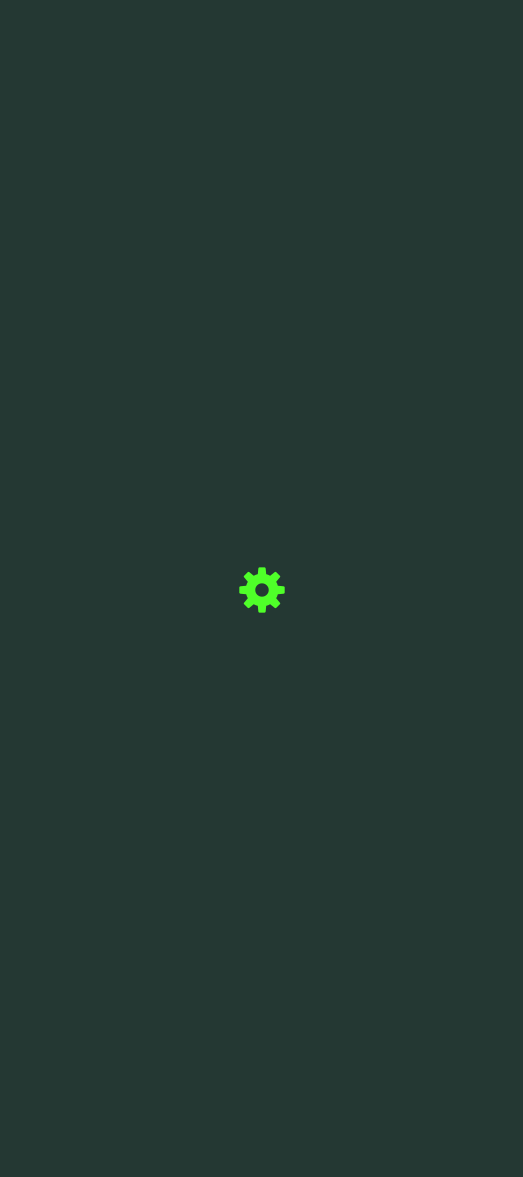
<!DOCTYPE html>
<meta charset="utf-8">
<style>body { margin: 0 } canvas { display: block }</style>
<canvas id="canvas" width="523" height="1177"></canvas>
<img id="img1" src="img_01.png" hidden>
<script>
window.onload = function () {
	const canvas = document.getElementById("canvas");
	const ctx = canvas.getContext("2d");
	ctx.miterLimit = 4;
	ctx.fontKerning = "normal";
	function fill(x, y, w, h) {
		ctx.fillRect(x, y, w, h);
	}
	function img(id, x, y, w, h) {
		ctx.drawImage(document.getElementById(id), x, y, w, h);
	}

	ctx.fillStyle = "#243833";
	fill(0, 0, 523, 1177);
	img("img1", 239, 567, 46, 46);
};
</script>
